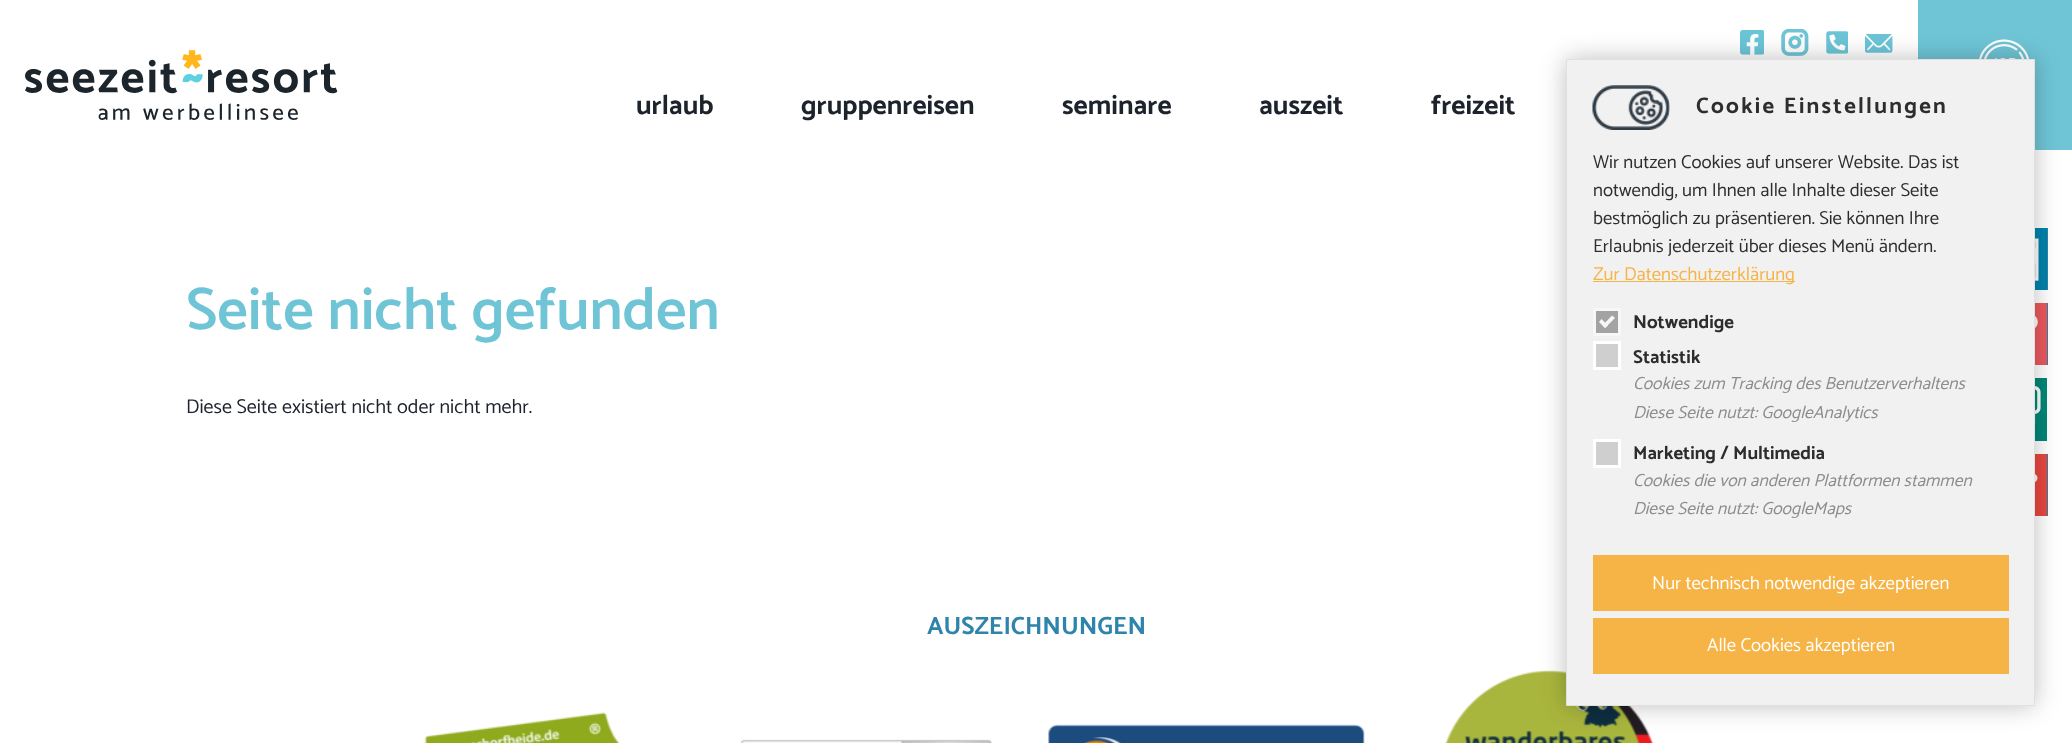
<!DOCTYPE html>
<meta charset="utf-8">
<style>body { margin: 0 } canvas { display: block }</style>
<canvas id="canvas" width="2072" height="743"></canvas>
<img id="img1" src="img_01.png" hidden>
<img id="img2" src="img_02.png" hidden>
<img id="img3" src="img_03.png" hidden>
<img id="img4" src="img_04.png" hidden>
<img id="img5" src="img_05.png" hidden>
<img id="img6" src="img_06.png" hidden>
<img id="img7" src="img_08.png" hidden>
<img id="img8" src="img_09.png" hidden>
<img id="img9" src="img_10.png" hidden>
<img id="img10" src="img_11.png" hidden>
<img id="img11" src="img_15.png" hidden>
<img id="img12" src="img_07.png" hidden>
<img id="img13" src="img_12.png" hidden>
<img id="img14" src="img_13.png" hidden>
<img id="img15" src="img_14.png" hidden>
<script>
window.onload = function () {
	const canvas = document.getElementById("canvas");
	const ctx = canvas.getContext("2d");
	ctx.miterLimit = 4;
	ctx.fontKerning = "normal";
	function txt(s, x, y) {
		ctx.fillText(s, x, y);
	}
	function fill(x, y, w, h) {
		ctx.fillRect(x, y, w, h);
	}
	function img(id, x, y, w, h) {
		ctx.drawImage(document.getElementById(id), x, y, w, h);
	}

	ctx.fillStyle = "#FFFFFF";
	fill(0, 0, 2072, 743);
	img("img1", 25, 50, 313, 70);
	img("img2", 1740, 30, 24, 25);
	img("img3", 1781, 29, 28, 27);
	img("img4", 1826, 31, 22, 23);
	img("img5", 1865, 34, 28, 19);
	img("img6", 1918, 0, 154, 150);
	ctx.fillStyle = "#2F84AC";
	fill(2047, 228, 1, 62);
	img("img7", 2035, 228, 12, 62);
	fill(2047, 303, 1, 62);
	img("img8", 2035, 303, 12, 62);
	img("img9", 2035, 378, 12, 63);
	fill(2047, 454, 1, 62);
	img("img10", 2035, 454, 12, 62);
	img("img11", 1445, 670, 209, 73);
	ctx.fillStyle = "rgba(0, 0, 0, 0.25)";
	ctx.filter = "blur(12.5px)";
	ctx.beginPath();
	ctx.rect(1566, 59, 469, 647);
	ctx.fill();
	ctx.filter = "none";
	ctx.fillStyle = "#F1F1F1";
	ctx.beginPath();
	ctx.rect(1566.5, 59.5, 468, 646);
	ctx.fill();
	ctx.strokeStyle = "#E0E0E0";
	ctx.stroke();
	img("img12", 1592, 85, 78, 45);
	ctx.fillStyle = "#F6B346";
	fill(1593, 281, 202, 1);
	ctx.fillStyle = "#A3A3A3";
	ctx.beginPath();
	ctx.rect(1594.5, 309.5, 25, 25);
	ctx.fill();
	ctx.strokeStyle = "#F7F7F7";
	ctx.lineWidth = 3;
	ctx.stroke();
	ctx.fillStyle = "#F7F7F7";
	ctx.beginPath();
	ctx.moveTo(1612, 315.5);
	ctx.lineTo(1615, 318);
	ctx.lineTo(1605, 328);
	ctx.lineTo(1602.5, 325.5);
	ctx.closePath();
	ctx.fill();
	ctx.beginPath();
	ctx.moveTo(1601.5, 319);
	ctx.lineTo(1608, 325.5);
	ctx.lineTo(1605, 328);
	ctx.lineTo(1599, 322);
	ctx.closePath();
	ctx.fill();
	ctx.fillStyle = "#CFCFCF";
	ctx.beginPath();
	ctx.rect(1594.5, 342.5, 25, 26);
	ctx.fill();
	ctx.strokeStyle = "#FFFFFF";
	ctx.stroke();
	ctx.beginPath();
	ctx.rect(1594.5, 440.5, 25, 26);
	ctx.fill();
	ctx.stroke();
	ctx.fillStyle = "#F6B346";
	fill(1593, 555, 416, 56);
	fill(1593, 618, 416, 56);
	img("img13", 424, 712, 196, 31);
	img("img14", 741, 739, 251, 4);
	img("img15", 1048, 724, 317, 19);
	ctx.font = "100 60px Catamaran";
	ctx.fillStyle = "#6FC5D6";
	txt("Seite nicht gefunden", 186, 329);
	ctx.font = "100 20px 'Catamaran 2'";
	ctx.fillStyle = "#1C232C";
	txt("Diese Seite existiert nicht oder nicht mehr.", 186, 413);
	ctx.font = "100 27.5px 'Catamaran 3'";
	txt("urlaub", 636, 114);
	txt("gruppenreisen", 801, 114);
	txt("seminare", 1062, 114);
	txt("auszeit", 1259, 114);
	txt("freizeit", 1431, 114);
	ctx.letterSpacing = "2.25px";
	ctx.font = "100 22.5px 'Catamaran 3'";
	ctx.fillStyle = "#2D2D2D";
	txt("Cookie Einstellungen", 1696, 113);
	ctx.letterSpacing = "0px";
	ctx.font = "100 18.75px 'Catamaran 2'";
	txt("Wir nutzen Cookies auf unserer Website. Das ist", 1593, 168);
	txt("notwendig, um Ihnen alle Inhalte dieser Seite", 1593, 196);
	txt("bestmöglich zu präsentieren. Sie können Ihre", 1593, 224);
	txt("Erlaubnis jederzeit über dieses Menü ändern.", 1593, 252);
	ctx.fillStyle = "#F6B346";
	txt("Zur Datenschutzerklärung", 1593, 280);
	ctx.font = "100 18.75px 'Catamaran 3'";
	ctx.fillStyle = "#2D2D2D";
	txt("Notwendige", 1633, 328);
	txt("Statistik", 1633, 363);
	ctx.font = "italic 100 17.5px Catamaran";
	ctx.fillStyle = "#8C8C8C";
	txt("Cookies zum Tracking des Benutzerverhaltens", 1633, 389);
	txt("Diese Seite nutzt: GoogleAnalytics", 1633, 418);
	ctx.font = "100 18.75px 'Catamaran 3'";
	ctx.fillStyle = "#2D2D2D";
	txt("Marketing / Multimedia", 1633, 459);
	ctx.font = "italic 100 17.5px Catamaran";
	ctx.fillStyle = "#8C8C8C";
	txt("Cookies die von anderen Plattformen stammen", 1633, 486);
	txt("Diese Seite nutzt: GoogleMaps", 1633, 514);
	ctx.font = "100 18.75px 'Catamaran 2'";
	ctx.fillStyle = "#FFFFFF";
	txt("Nur technisch notwendige akzeptieren", 1652, 589);
	txt("Alle Cookies akzeptieren", 1707, 651);
	ctx.font = "100 25px 'Catamaran 3'";
	ctx.fillStyle = "#2F84AC";
	txt("AUSZEICHNUNGEN", 927, 634);
};
</script>
